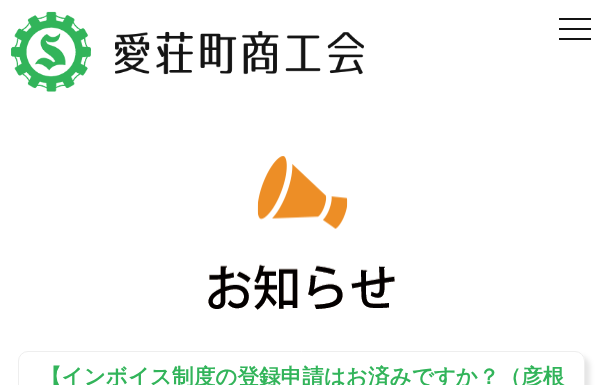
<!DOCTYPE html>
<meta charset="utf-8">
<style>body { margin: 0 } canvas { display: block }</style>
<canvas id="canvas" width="603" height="385"></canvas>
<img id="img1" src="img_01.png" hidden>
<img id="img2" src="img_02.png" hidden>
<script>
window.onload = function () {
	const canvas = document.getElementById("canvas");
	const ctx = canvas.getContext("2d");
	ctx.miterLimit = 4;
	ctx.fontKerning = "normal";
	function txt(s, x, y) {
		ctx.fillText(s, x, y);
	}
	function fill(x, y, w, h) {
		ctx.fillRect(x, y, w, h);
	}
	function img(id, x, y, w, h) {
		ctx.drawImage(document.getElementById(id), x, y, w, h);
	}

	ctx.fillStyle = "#FFFFFF";
	fill(0, 0, 603, 385);
	img("img1", 11, 11, 353, 81);
	ctx.fillStyle = "#141414";
	fill(559, 28, 32, 2);
	fill(559, 18, 32, 2);
	fill(559, 38, 32, 2);
	img("img2", 208, 156, 187, 154);
	ctx.save();
	ctx.beginPath();
	ctx.moveTo(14, 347);
	ctx.lineTo(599, 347);
	ctx.lineTo(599, 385);
	ctx.lineTo(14, 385);
	ctx.closePath();
	ctx.moveTo(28, 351);
	ctx.lineTo(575, 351);
	ctx.bezierCurveTo(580.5, 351, 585, 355.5, 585, 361);
	ctx.lineTo(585, 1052);
	ctx.bezierCurveTo(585, 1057.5, 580.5, 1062, 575, 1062);
	ctx.lineTo(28, 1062);
	ctx.bezierCurveTo(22.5, 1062, 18, 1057.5, 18, 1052);
	ctx.lineTo(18, 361);
	ctx.bezierCurveTo(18, 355.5, 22.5, 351, 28, 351);
	ctx.closePath();
	ctx.clip("evenodd");
	ctx.fillStyle = "rgba(0, 0, 0, 0.1)";
	ctx.filter = "blur(2.5px)";
	ctx.beginPath();
	ctx.roundRect(23, 356, 567, 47, 10);
	ctx.fill();
	ctx.filter = "none";
	ctx.restore();
	ctx.fillStyle = "rgba(255, 255, 255, 0.8)";
	ctx.beginPath();
	ctx.roundRect(18.5, 351.5, 566, 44, 9.5);
	ctx.fill();
	ctx.strokeStyle = "#EEEEEE";
	ctx.stroke();
	ctx.font = "bold 21.6px WenQuanYi Zen Hei";
	ctx.fillStyle = "#32B45A";
	txt("【インボイス制度の登録申請はお済みですか？（彦根", 40, 384);
};
</script>
